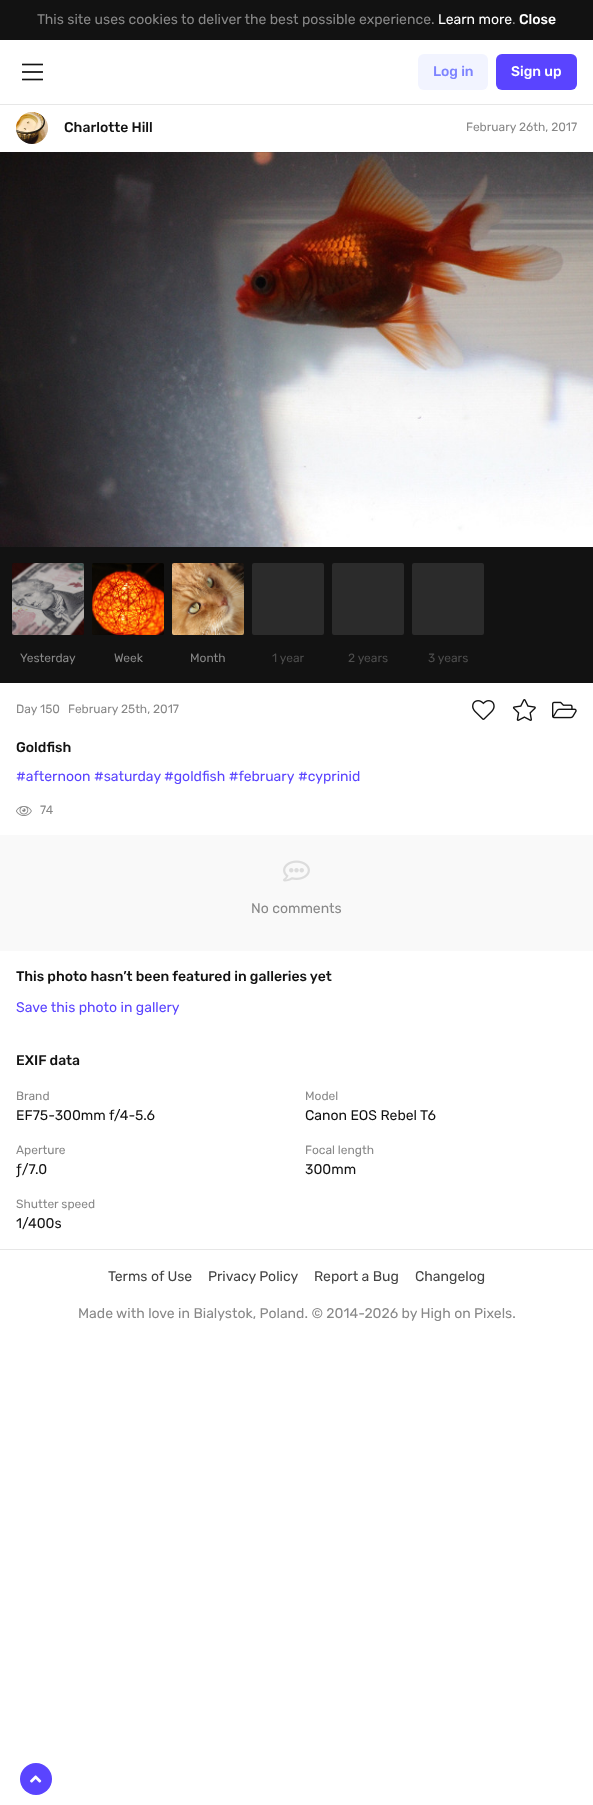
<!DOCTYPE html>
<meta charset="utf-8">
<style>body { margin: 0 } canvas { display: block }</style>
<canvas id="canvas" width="593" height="1805"></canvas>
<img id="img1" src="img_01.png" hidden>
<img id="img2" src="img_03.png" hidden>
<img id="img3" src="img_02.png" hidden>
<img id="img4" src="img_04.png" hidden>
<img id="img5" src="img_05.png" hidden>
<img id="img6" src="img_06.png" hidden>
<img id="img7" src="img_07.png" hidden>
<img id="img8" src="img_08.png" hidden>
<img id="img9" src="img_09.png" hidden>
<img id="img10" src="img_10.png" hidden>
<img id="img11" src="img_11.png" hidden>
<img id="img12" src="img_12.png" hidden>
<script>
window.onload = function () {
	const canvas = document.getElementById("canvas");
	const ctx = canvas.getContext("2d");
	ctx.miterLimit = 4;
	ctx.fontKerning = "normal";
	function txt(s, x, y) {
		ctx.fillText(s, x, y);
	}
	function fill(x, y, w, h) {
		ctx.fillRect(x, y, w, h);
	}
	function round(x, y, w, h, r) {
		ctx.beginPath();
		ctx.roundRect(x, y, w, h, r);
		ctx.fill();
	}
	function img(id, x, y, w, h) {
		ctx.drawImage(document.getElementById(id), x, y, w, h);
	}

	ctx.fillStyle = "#FFFFFF";
	fill(0, 0, 593, 1805);
	ctx.fillStyle = "#121212";
	fill(0, 0, 593, 40);
	ctx.fillStyle = "#E7E7E7";
	fill(0, 104, 593, 1);
	img("img1", 22, 63, 21, 18);
	ctx.fillStyle = "#F2F4FF";
	round(418, 54, 70, 36, 6);
	ctx.fillStyle = "#5A44FF";
	round(496, 54, 81, 36, 6);
	img("img2", 0, 152, 593, 395);
	ctx.fillStyle = "rgba(18, 18, 18, 0.1)";
	fill(191, 152, 402, 1);
	ctx.fillStyle = "#F5F5F5";
	ctx.beginPath();
	ctx.arc(32, 128, 16, 0, Math.PI * 2);
	ctx.fill();
	img("img3", 16, 112, 32, 32);
	ctx.fillStyle = "#121212";
	fill(0, 547, 593, 136);
	img("img4", 12, 563, 72, 72);
	img("img5", 92, 563, 72, 72);
	img("img6", 172, 563, 72, 72);
	ctx.fillStyle = "#2B2B2B";
	round(252, 563, 72, 72, 2);
	round(332, 563, 72, 72, 2);
	round(412, 563, 72, 72, 2);
	img("img7", 472, 700, 23, 20);
	img("img8", 512, 699, 24, 22);
	img("img9", 552, 701, 25, 18);
	img("img10", 16, 806, 16, 10);
	ctx.fillStyle = "#F9F9F9";
	fill(0, 835, 593, 116);
	img("img11", 283, 860, 27, 22);
	ctx.fillStyle = "#E7E7E7";
	fill(0, 1249, 593, 1);
	ctx.fillStyle = "#5A44FF";
	ctx.beginPath();
	ctx.arc(36, 1779, 16, 0, Math.PI * 2);
	ctx.fill();
	img("img12", 30, 1775, 12, 8);
	ctx.font = "14px Rubik";
	ctx.fillStyle = "#888888";
	txt("This site uses cookies to deliver the best possible experience.", 37, 24);
	ctx.fillStyle = "#FFFFFF";
	txt("Learn more", 438, 24);
	ctx.fillStyle = "#888888";
	txt(".", 512, 24);
	ctx.font = "500 14px Rubik";
	ctx.fillStyle = "#FFFFFF";
	txt("Close", 519, 24);
	ctx.fillStyle = "#7E84FF";
	txt("Log in", 433, 76);
	ctx.fillStyle = "#FFFFFF";
	txt("Sign up", 511, 76);
	ctx.fillStyle = "#121212";
	txt("Charlotte Hill", 64, 132);
	ctx.font = "12px Rubik";
	ctx.fillStyle = "#888888";
	txt("February 26th, 2017", 466, 131);
	txt("Yesterday", 20, 662);
	txt("Week", 114, 662);
	txt("Month", 190, 662);
	ctx.fillStyle = "#4D4D4D";
	txt("1 year", 272, 662);
	txt("2 years", 348, 662);
	txt("3 years", 428, 662);
	ctx.fillStyle = "#888888";
	txt("Day 150", 16, 713);
	txt("February 25th, 2017", 68, 713);
	ctx.font = "500 14px Rubik";
	ctx.fillStyle = "#121212";
	txt("Goldfish", 16, 752);
	ctx.font = "14px Rubik";
	ctx.fillStyle = "#5A44FF";
	txt("#afternoon #saturday", 16, 781);
	txt("#goldfish #february", 164, 781);
	txt("#cyprinid", 298, 781);
	ctx.font = "12px Rubik";
	ctx.fillStyle = "#888888";
	txt("74", 40, 814);
	ctx.font = "14px Rubik";
	txt("No comments", 251, 913);
	ctx.font = "500 14px Rubik";
	ctx.fillStyle = "#121212";
	txt("This photo hasn’t been featured in galleries yet", 16, 981);
	ctx.font = "14px Rubik";
	ctx.fillStyle = "#5A44FF";
	txt("Save this photo in gallery", 16, 1012);
	ctx.font = "500 14px Rubik";
	ctx.fillStyle = "#121212";
	txt("EXIF data", 16, 1065);
	ctx.font = "12px Rubik";
	ctx.fillStyle = "#888888";
	txt("Brand", 16, 1100);
	ctx.font = "14px Rubik";
	ctx.fillStyle = "#121212";
	txt("EF75-300mm f/4-5.6", 16, 1120);
	ctx.font = "12px Rubik";
	ctx.fillStyle = "#888888";
	txt("Model", 305, 1100);
	ctx.font = "14px Rubik";
	ctx.fillStyle = "#121212";
	txt("Canon EOS Rebel T6", 305, 1120);
	ctx.font = "12px Rubik";
	ctx.fillStyle = "#888888";
	txt("Aperture", 16, 1154);
	ctx.font = "14px Rubik";
	ctx.fillStyle = "#121212";
	txt("ƒ/7.0", 16, 1174);
	ctx.font = "12px Rubik";
	ctx.fillStyle = "#888888";
	txt("Focal length", 305, 1154);
	ctx.font = "14px Rubik";
	ctx.fillStyle = "#121212";
	txt("300mm", 305, 1174);
	ctx.font = "12px Rubik";
	ctx.fillStyle = "#888888";
	txt("Shutter speed", 16, 1208);
	ctx.font = "14px Rubik";
	ctx.fillStyle = "#121212";
	txt("1/400s", 16, 1228);
	ctx.fillStyle = "#444444";
	txt("Terms of Use", 108, 1281);
	txt("Privacy Policy", 208, 1281);
	txt("Report a Bug", 314, 1281);
	txt("Changelog", 415, 1281);
	ctx.fillStyle = "#888888";
	txt("Made with love in Bialystok, Poland. © 2014-2026 by High on Pixels.", 78, 1318);
};
</script>
